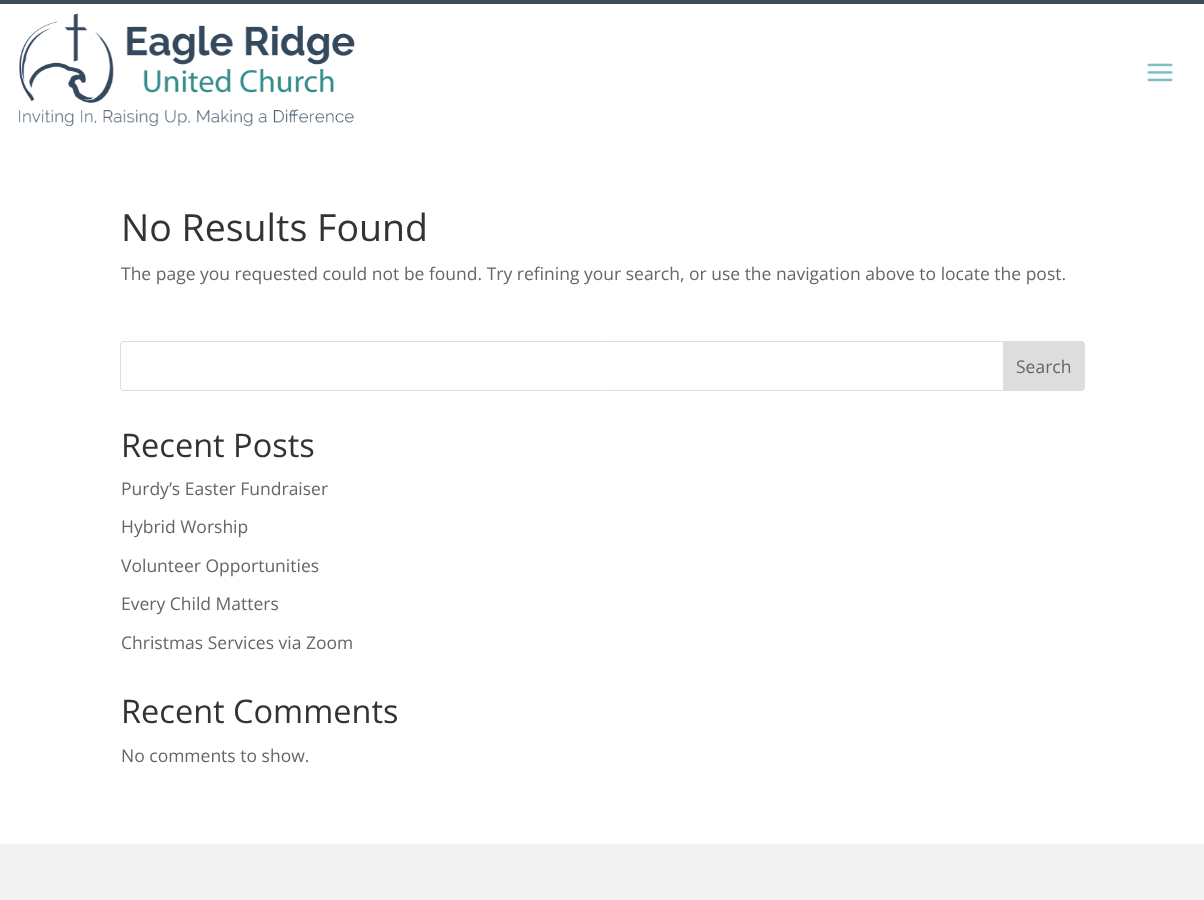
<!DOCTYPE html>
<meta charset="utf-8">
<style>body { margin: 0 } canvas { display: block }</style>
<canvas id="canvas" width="1204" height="900"></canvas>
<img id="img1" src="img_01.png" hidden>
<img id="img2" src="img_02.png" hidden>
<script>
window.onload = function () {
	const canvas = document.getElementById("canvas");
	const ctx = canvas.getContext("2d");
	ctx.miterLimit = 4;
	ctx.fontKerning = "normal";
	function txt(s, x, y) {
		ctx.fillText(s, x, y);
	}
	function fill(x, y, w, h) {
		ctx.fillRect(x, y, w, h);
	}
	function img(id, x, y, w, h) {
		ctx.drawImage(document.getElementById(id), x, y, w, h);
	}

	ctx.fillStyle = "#FFFFFF";
	fill(0, 0, 1204, 900);
	ctx.fillStyle = "#3D4B59";
	fill(0, 0, 1204, 4);
	img("img1", 19, 13, 336, 113);
	img("img2", 1147, 63, 26, 19);
	ctx.beginPath();
	ctx.roundRect(120.5, 341.5, 964, 49, 3.5);
	ctx.strokeStyle = "#DDDDDD";
	ctx.stroke();
	ctx.fillStyle = "#DDDDDD";
	ctx.beginPath();
	ctx.roundRect(1003.5, 341.5, 81, 49, [0, 3.5, 3.5, 0]);
	ctx.fill();
	ctx.stroke();
	ctx.fillStyle = "#F2F2F2";
	fill(0, 844, 1204, 56);
	ctx.font = "37.5px Open Sans";
	ctx.fillStyle = "#333333";
	txt("No Results Found", 121, 241);
	ctx.font = "17.5px Open Sans";
	ctx.fillStyle = "#666666";
	txt("The page you requested could not be found. Try refining your search, or use the navigation above to locate the post.", 121, 280);
	txt("Search", 1016, 373);
	ctx.font = "32.5px Open Sans";
	ctx.fillStyle = "#333333";
	txt("Recent Posts", 121, 457);
	ctx.font = "17.5px Open Sans";
	ctx.fillStyle = "#666666";
	txt("Purdy’s Easter Fundraiser", 121, 495);
	txt("Hybrid Worship", 121, 533);
	txt("Volunteer Opportunities", 121, 572);
	txt("Every Child Matters", 121, 610);
	txt("Christmas Services via Zoom", 121, 649);
	ctx.font = "32.5px Open Sans";
	ctx.fillStyle = "#333333";
	txt("Recent Comments", 121, 723);
	ctx.font = "17.5px Open Sans";
	ctx.fillStyle = "#666666";
	txt("No comments to show.", 121, 762);
};
</script>
